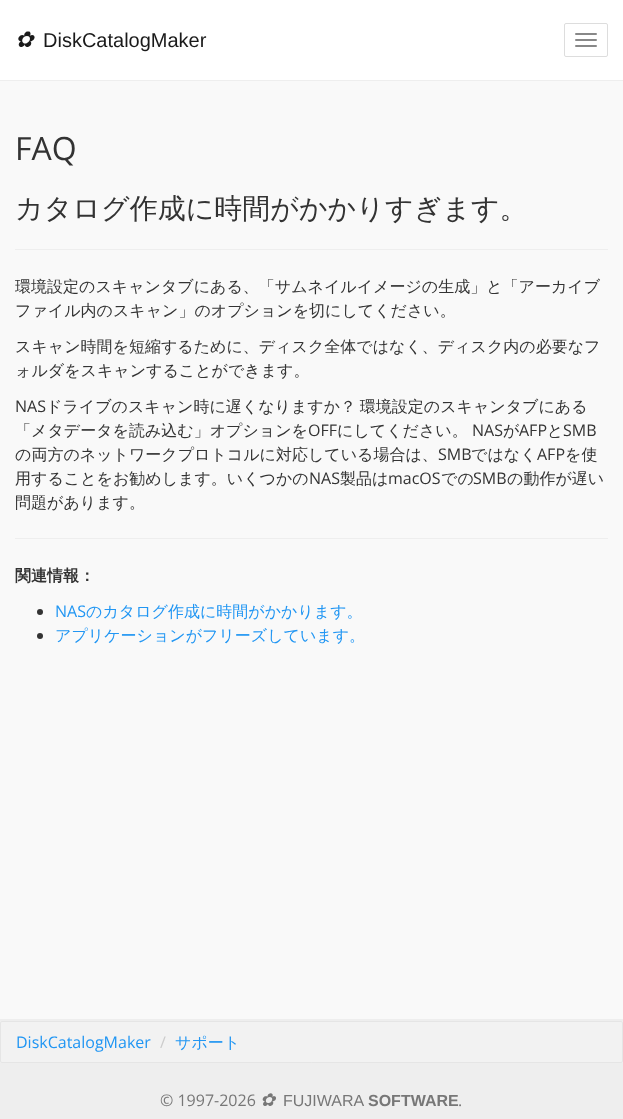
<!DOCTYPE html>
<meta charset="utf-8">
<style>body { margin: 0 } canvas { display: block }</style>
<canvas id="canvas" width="623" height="1119"></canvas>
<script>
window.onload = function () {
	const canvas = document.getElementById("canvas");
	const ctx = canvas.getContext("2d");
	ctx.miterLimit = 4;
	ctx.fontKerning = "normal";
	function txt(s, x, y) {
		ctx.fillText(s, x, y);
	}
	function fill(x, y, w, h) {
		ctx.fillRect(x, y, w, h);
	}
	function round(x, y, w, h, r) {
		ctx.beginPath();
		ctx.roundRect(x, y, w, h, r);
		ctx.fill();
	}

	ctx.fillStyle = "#F9F9F9";
	fill(0, 0, 623, 1119);
	ctx.fillStyle = "#FFFFFF";
	fill(0, 0, 623, 80);
	ctx.fillStyle = "#EEEEEE";
	fill(0, 80, 623, 1);
	ctx.beginPath();
	ctx.roundRect(564.5, 23.5, 43, 33, 1.5);
	ctx.strokeStyle = "#DDDDDD";
	ctx.stroke();
	ctx.fillStyle = "#888888";
	round(575, 33, 22, 2, 1);
	round(575, 39, 22, 2, 1);
	round(575, 45, 22, 2, 1);
	ctx.fillStyle = "#EEEEEE";
	fill(15, 249, 593, 1);
	fill(15, 538, 593, 1);
	ctx.fillStyle = "#333333";
	ctx.beginPath();
	ctx.arc(40, 612, 3, 0, Math.PI * 2);
	ctx.fill();
	ctx.beginPath();
	ctx.arc(40, 636, 3, 0, Math.PI * 2);
	ctx.fill();
	ctx.fillStyle = "#EEEEEE";
	fill(0, 1019, 623, 100);
	ctx.fillStyle = "#F2F2F2";
	ctx.beginPath();
	ctx.roundRect(0.5, 1021.5, 622, 41, 1.5);
	ctx.fill();
	ctx.strokeStyle = "#E5E5E5";
	ctx.stroke();
	ctx.font = "italic 22px DejaVu Sans";
	ctx.fillStyle = "#1A1A1A";
	txt("✿", 15, 47);
	ctx.font = "20px Liberation Sans";
	txt("DiskCatalogMaker", 43, 47);
	ctx.font = "32px Open Sans";
	ctx.fillStyle = "#333333";
	txt("FAQ", 15, 160);
	ctx.font = "500 28px WenQuanYi Zen Hei";
	txt("カタログ作成に時間がかかりすぎます。", 15, 218);
	ctx.font = "500 16px WenQuanYi Zen Hei";
	txt("環境設定のスキャンタブにある、「サムネイルイメージの生成」と「アーカイブ", 15, 292);
	txt("ファイル内のスキャン」のオプションを切にしてください。", 15, 316);
	txt("スキャン時間を短縮するために、ディスク全体ではなく、ディスク内の必要なフ", 15, 352);
	txt("ォルダをスキャンすることができます。", 15, 376);
	ctx.font = "16px Open Sans";
	txt("NAS", 15, 412);
	ctx.wordSpacing = "-1px";
	ctx.font = "500 16px WenQuanYi Zen Hei";
	txt("ドライブのスキャン時に遅くなりますか？ 環境設定のスキャンタブにある", 46, 412);
	ctx.wordSpacing = "0px";
	txt("「メタデータを読み込む」オプションを", 15, 436);
	ctx.font = "16px Open Sans";
	txt("OFF", 308, 436);
	ctx.font = "500 16px WenQuanYi Zen Hei";
	txt("にしてください。", 337, 436);
	ctx.font = "16px Open Sans";
	txt("NAS", 472, 436);
	ctx.font = "500 16px WenQuanYi Zen Hei";
	txt("が", 503, 436);
	ctx.font = "16px Open Sans";
	txt("AFP", 519, 436);
	ctx.font = "500 16px WenQuanYi Zen Hei";
	txt("と", 547, 436);
	ctx.font = "16px Open Sans";
	txt("SMB", 563, 436);
	ctx.font = "500 16px WenQuanYi Zen Hei";
	txt("の両方のネットワークプロトコルに対応している場合は、", 15, 460);
	ctx.font = "16px Open Sans";
	txt("SMB", 438, 460);
	ctx.font = "500 16px WenQuanYi Zen Hei";
	txt("ではなく", 471, 460);
	ctx.font = "16px Open Sans";
	txt("AFP", 537, 460);
	ctx.font = "500 16px WenQuanYi Zen Hei";
	txt("を使", 565, 460);
	txt("用することをお勧めします。いくつかの", 15, 484);
	ctx.font = "16px Open Sans";
	txt("NAS", 309, 484);
	ctx.font = "500 16px WenQuanYi Zen Hei";
	txt("製品は", 340, 484);
	ctx.font = "16px Open Sans";
	txt("macOS", 388, 484);
	ctx.font = "500 16px WenQuanYi Zen Hei";
	txt("での", 441, 484);
	ctx.font = "16px Open Sans";
	txt("SMB", 473, 484);
	ctx.font = "500 16px WenQuanYi Zen Hei";
	txt("の動作が遅い", 507, 484);
	txt("問題があります。", 15, 508);
	ctx.font = "bold 16px WenQuanYi Zen Hei";
	txt("関連情報：", 15, 581);
	ctx.font = "16px Open Sans";
	ctx.fillStyle = "#2196F3";
	txt("NAS", 55, 617);
	ctx.font = "500 16px WenQuanYi Zen Hei";
	txt("のカタログ作成に時間がかかります。", 86, 617);
	txt("アプリケーションがフリーズしています。", 55, 641);
	ctx.font = "16px Open Sans";
	txt("DiskCatalogMaker", 16, 1048);
	ctx.fillStyle = "#CCCCCC";
	txt("/", 160, 1048);
	ctx.font = "500 16px WenQuanYi Zen Hei";
	ctx.fillStyle = "#2196F3";
	txt("サポート", 175, 1048);
	ctx.font = "16px Open Sans";
	ctx.fillStyle = "#777777";
	txt("© 1997-2026", 160, 1106);
	ctx.font = "italic 18px DejaVu Sans";
	txt("✿", 260, 1106);
	ctx.font = "16px Liberation Sans";
	txt("FUJIWARA", 283, 1106);
	ctx.font = "bold 16px Liberation Sans";
	txt("SOFTWARE", 368, 1106);
	ctx.font = "16px Open Sans";
	txt(".", 458, 1106);
};
</script>
